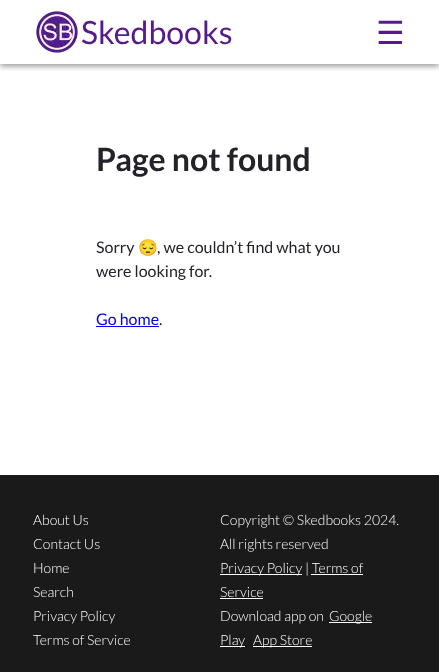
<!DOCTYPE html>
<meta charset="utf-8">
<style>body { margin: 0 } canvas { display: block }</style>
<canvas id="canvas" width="439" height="672"></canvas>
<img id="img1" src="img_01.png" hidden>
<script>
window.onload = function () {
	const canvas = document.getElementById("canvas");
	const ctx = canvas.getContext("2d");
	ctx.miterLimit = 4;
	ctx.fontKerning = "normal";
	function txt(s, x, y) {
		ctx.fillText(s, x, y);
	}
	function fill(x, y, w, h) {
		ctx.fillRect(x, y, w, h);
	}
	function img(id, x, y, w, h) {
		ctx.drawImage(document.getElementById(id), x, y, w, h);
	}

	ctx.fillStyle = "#FFFFFF";
	fill(0, 0, 439, 672);
	ctx.save();
	ctx.beginPath();
	ctx.rect(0, 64, 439, 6);
	ctx.clip();
	ctx.fillStyle = "rgba(0, 0, 0, 0.12)";
	ctx.filter = "blur(5px)";
	ctx.beginPath();
	ctx.rect(0, 1, 439, 64);
	ctx.fill();
	ctx.filter = "none";
	ctx.restore();
	ctx.save();
	ctx.beginPath();
	ctx.rect(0, 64, 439, 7);
	ctx.clip();
	ctx.fillStyle = "rgba(0, 0, 0, 0.14)";
	ctx.filter = "blur(2.5px)";
	ctx.beginPath();
	ctx.rect(0, 4, 439, 64);
	ctx.fill();
	ctx.filter = "none";
	ctx.restore();
	ctx.save();
	ctx.beginPath();
	ctx.rect(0, 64, 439, 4);
	ctx.clip();
	ctx.fillStyle = "rgba(0, 0, 0, 0.2)";
	ctx.filter = "blur(2px)";
	ctx.beginPath();
	ctx.rect(1, 3, 437, 62);
	ctx.fill();
	ctx.filter = "none";
	ctx.restore();
	img("img1", 36, 11, 42, 42);
	ctx.fillStyle = "#0000EE";
	fill(96, 326, 63, 1);
	ctx.fillStyle = "#1A1A1A";
	fill(0, 475, 439, 197);
	ctx.fillStyle = "#FFFFFF";
	fill(220, 574, 82, 1);
	fill(311, 574, 52, 1);
	fill(220, 598, 43, 1);
	fill(329, 622, 43, 1);
	fill(220, 646, 25, 1);
	fill(253, 646, 59, 1);
	ctx.font = "32px Lato";
	ctx.fillStyle = "#561A8B";
	txt("Skedbooks", 81, 44);
	ctx.font = "32px DejaVu Sans";
	txt("☰", 376, 44);
	ctx.font = "bold 32px Lato";
	ctx.fillStyle = "#232129";
	txt("Page not found", 96, 171);
	ctx.font = "16px Lato";
	txt("Sorry", 96, 253);
	ctx.font = "16px Noto Color Emoji";
	txt("😔", 138, 253);
	ctx.font = "16px Lato";
	txt(", we couldn’t find what you", 157, 253);
	txt("were looking for.", 96, 277);
	ctx.fillStyle = "#0000EE";
	txt("Go home", 96, 325);
	ctx.fillStyle = "#232129";
	txt(".", 159, 325);
	ctx.font = "300 14px Lato";
	ctx.fillStyle = "#FFFFFF";
	txt("About Us", 33, 525);
	txt("Contact Us", 33, 549);
	txt("Home", 33, 573);
	txt("Search", 33, 597);
	txt("Privacy Policy", 33, 621);
	txt("Terms of Service", 33, 645);
	txt("Copyright © Skedbooks 2024.", 220, 525);
	txt("All rights reserved", 220, 549);
	txt("Privacy Policy | Terms of", 220, 573);
	txt("Service", 220, 597);
	txt("Download app on", 220, 621);
	txt("Google", 329, 621);
	txt("Play", 220, 645);
	txt("App Store", 253, 645);
};
</script>
